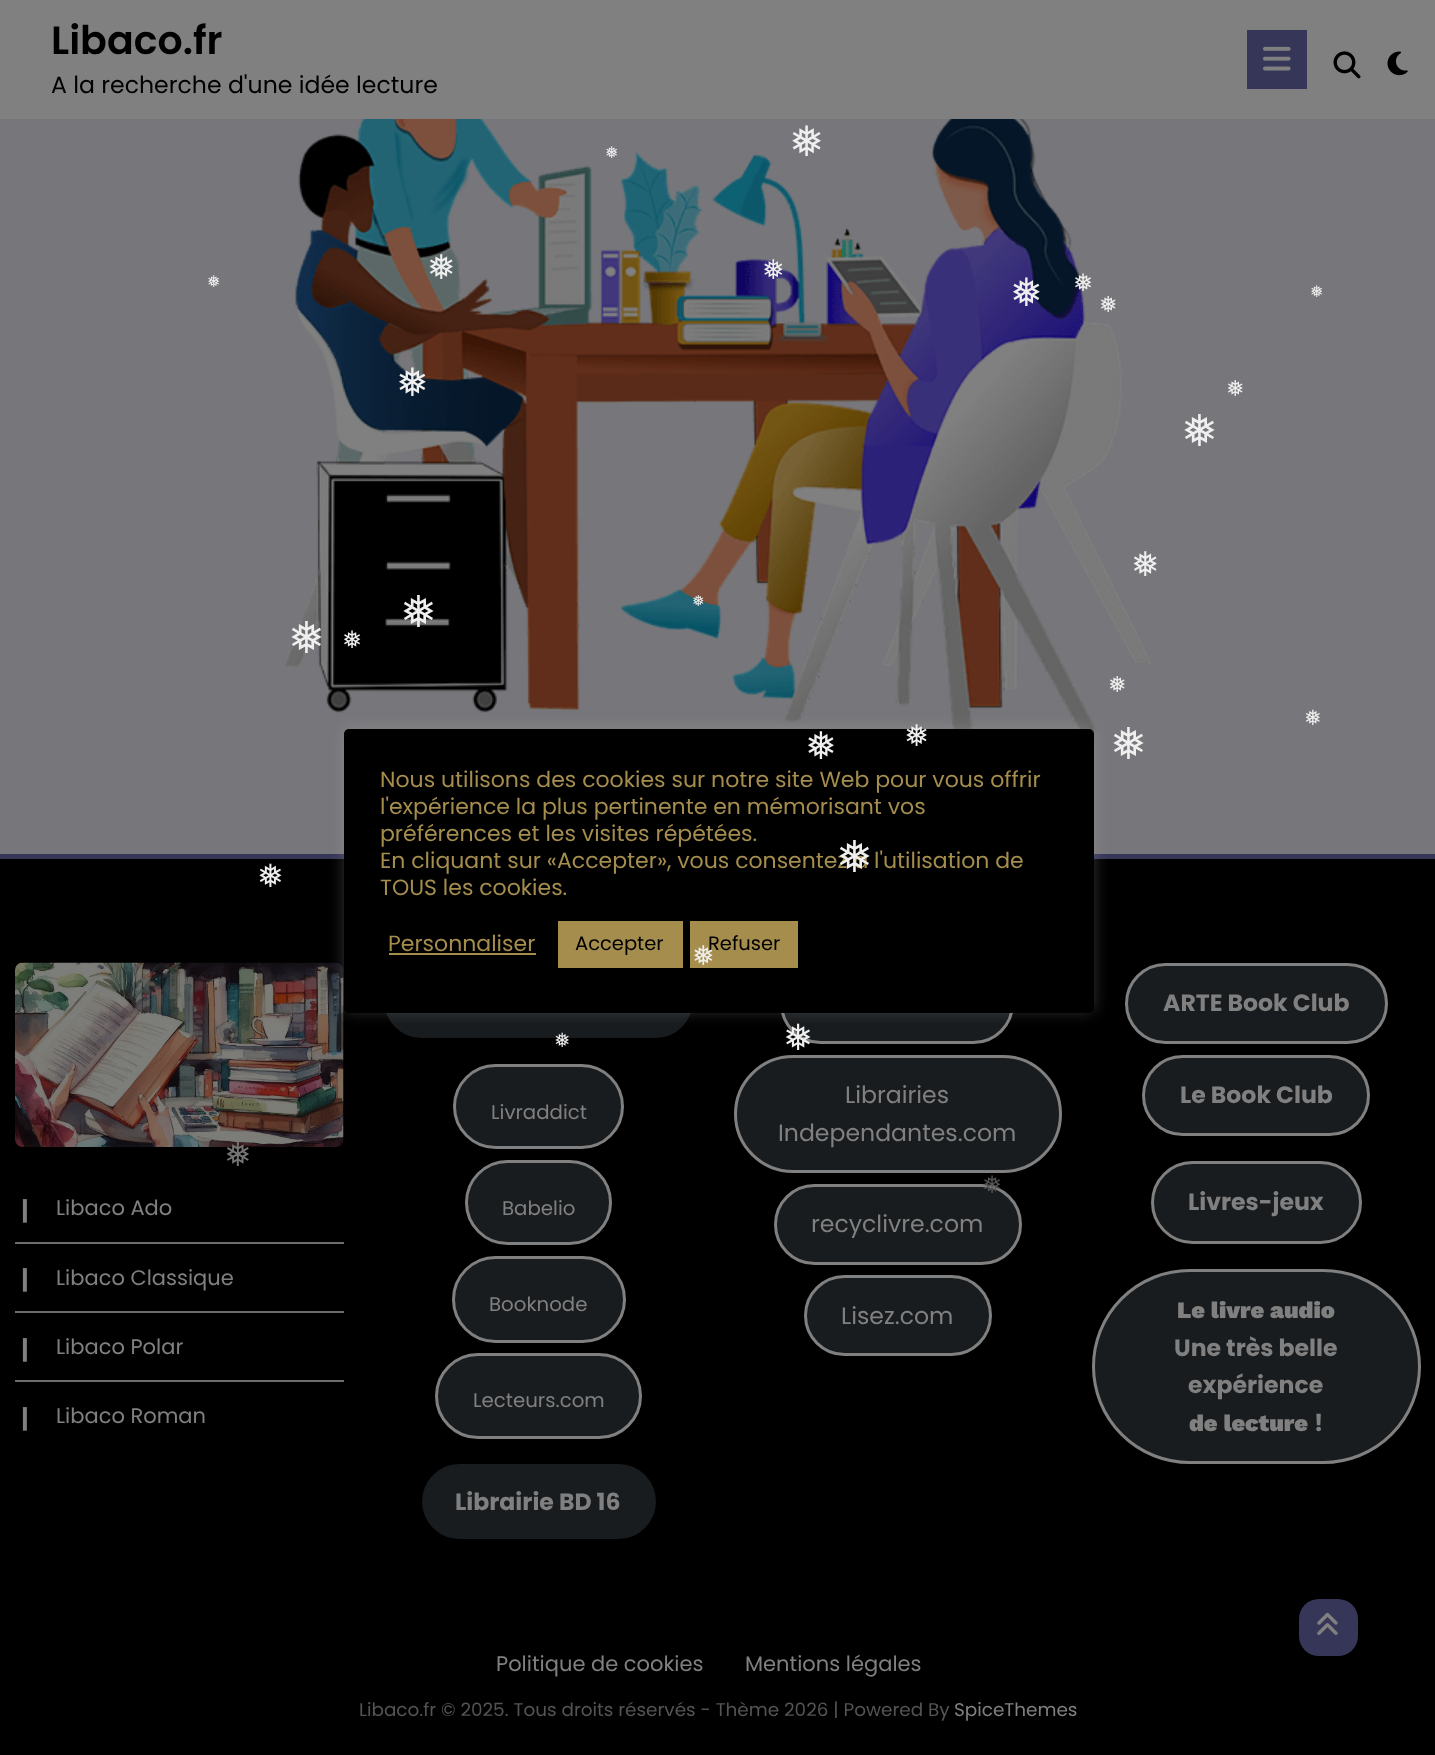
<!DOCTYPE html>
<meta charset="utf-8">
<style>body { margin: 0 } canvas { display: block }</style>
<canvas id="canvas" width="1435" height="1755"></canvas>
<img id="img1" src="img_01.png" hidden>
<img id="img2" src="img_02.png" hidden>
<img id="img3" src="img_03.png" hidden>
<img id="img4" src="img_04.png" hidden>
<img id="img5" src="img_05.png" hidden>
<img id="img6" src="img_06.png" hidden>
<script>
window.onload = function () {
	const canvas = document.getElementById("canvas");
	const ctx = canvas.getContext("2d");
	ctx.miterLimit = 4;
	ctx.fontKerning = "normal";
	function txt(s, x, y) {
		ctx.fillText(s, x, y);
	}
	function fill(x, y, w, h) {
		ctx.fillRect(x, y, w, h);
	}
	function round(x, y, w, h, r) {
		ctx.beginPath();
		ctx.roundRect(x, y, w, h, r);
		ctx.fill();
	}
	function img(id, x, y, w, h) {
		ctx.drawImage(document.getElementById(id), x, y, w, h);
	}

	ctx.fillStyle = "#77777B";
	fill(0, 0, 1435, 1755);
	ctx.fillStyle = "#808080";
	fill(0, 0, 1435, 119);
	ctx.fillStyle = "#363659";
	fill(1247, 30, 60, 59);
	img("img1", 1263, 46, 28, 25);
	img("img2", 1333, 51, 28, 28);
	img("img3", 1387, 51, 21, 25);
	img("img4", 285, 119, 867, 613);
	ctx.fillStyle = "#000000";
	fill(0, 859, 1435, 896);
	ctx.fillStyle = "#363659";
	fill(0, 854, 1435, 5);
	img("img5", 15, 962, 329, 185);
	ctx.fillStyle = "#6C6C6C";
	fill(15, 1242, 329, 2);
	fill(15, 1311, 329, 2);
	fill(15, 1380, 329, 2);
	ctx.fillStyle = "#191C1E";
	round(384, 963, 309, 75, 37.5);
	ctx.beginPath();
	ctx.roundRect(454.5, 1065.5, 168, 82, 41);
	ctx.fill();
	ctx.strokeStyle = "#808080";
	ctx.lineWidth = 3;
	ctx.stroke();
	ctx.beginPath();
	ctx.roundRect(466.5, 1161.5, 144, 82, 41);
	ctx.fill();
	ctx.stroke();
	ctx.beginPath();
	ctx.roundRect(453.5, 1257.5, 171, 84, 42);
	ctx.fill();
	ctx.stroke();
	ctx.beginPath();
	ctx.roundRect(436.5, 1354.5, 204, 83, 41.5);
	ctx.fill();
	ctx.stroke();
	round(422, 1464, 234, 75, 37.5);
	ctx.beginPath();
	ctx.roundRect(781.5, 964.5, 231, 78, 39);
	ctx.fill();
	ctx.stroke();
	ctx.beginPath();
	ctx.roundRect(735.5, 1056.5, 325, 115, 57.5);
	ctx.fill();
	ctx.stroke();
	ctx.beginPath();
	ctx.roundRect(775.5, 1185.5, 245, 78, 39);
	ctx.fill();
	ctx.stroke();
	ctx.beginPath();
	ctx.roundRect(805.5, 1276.5, 185, 78, 39);
	ctx.fill();
	ctx.stroke();
	ctx.beginPath();
	ctx.roundRect(1126.5, 964.5, 260, 78, 39);
	ctx.fill();
	ctx.stroke();
	ctx.beginPath();
	ctx.roundRect(1143.5, 1056.5, 225, 78, 39);
	ctx.fill();
	ctx.stroke();
	ctx.beginPath();
	ctx.roundRect(1152.5, 1162.5, 208, 80, 40);
	ctx.fill();
	ctx.stroke();
	ctx.beginPath();
	ctx.roundRect(1093.5, 1270.5, 326, 192, 96);
	ctx.fill();
	ctx.stroke();
	ctx.fillStyle = "#363659";
	round(1299, 1599, 59, 57, 20);
	img("img6", 1317, 1612, 21, 23);
	ctx.fillStyle = "rgba(172, 171, 171, 0.3)";
	ctx.filter = "blur(7.5px)";
	ctx.beginPath();
	ctx.roundRect(344, 728, 750, 283, 5);
	ctx.fill();
	ctx.filter = "none";
	ctx.fillStyle = "#000000";
	round(344, 729, 750, 284, 5);
	ctx.fillStyle = "#A58D4E";
	fill(389, 953, 147, 2);
	fill(558, 921, 125, 47);
	fill(690, 921, 108, 47);
	ctx.font = "600 39.5px Poppins";
	ctx.fillStyle = "#000000";
	txt("Libaco.fr", 51, 54);
	ctx.font = "23.6px Poppins";
	txt("A la recherche d'une idée lecture", 51, 93);
	ctx.font = "23.6px DejaVu Sans";
	ctx.fillStyle = "#808080";
	txt("❙", 15, 1217);
	ctx.font = "21px Poppins";
	txt("Libaco Ado", 56, 1215);
	ctx.font = "23.6px DejaVu Sans";
	txt("❙", 15, 1286);
	ctx.font = "21px Poppins";
	txt("Libaco Classique", 56, 1285);
	ctx.font = "23.6px DejaVu Sans";
	txt("❙", 15, 1356);
	ctx.font = "21px Poppins";
	txt("Libaco Polar", 56, 1354);
	ctx.font = "23.6px DejaVu Sans";
	txt("❙", 15, 1425);
	ctx.font = "21px Poppins";
	txt("Libaco Roman", 56, 1423);
	ctx.font = "19.75px Poppins";
	txt("Livraddict", 491, 1119);
	txt("Babelio", 502, 1215);
	txt("Booknode", 489, 1311);
	txt("Lecteurs.com", 473, 1407);
	ctx.font = "bold 23.6px Poppins";
	txt("Librairie BD 16", 455, 1510);
	ctx.font = "23.6px Poppins";
	txt("Librairies", 845, 1103);
	txt("Independantes.com", 778, 1141);
	txt("recyclivre.com", 811, 1232);
	txt("Lisez.com", 841, 1324);
	ctx.font = "bold 23.6px Poppins";
	txt("ARTE Book Club", 1163, 1011);
	txt("Le Book Club", 1180, 1103);
	txt("Livres-jeux", 1188, 1210);
	ctx.font = "900 23.6px Work Sans";
	txt("Le livre audio", 1177, 1318);
	ctx.font = "bold 23.6px Poppins";
	txt("Une très belle", 1174, 1356);
	txt("expérience", 1188, 1393);
	ctx.font = "900 23.6px Work Sans";
	txt("de lecture", 1189, 1431);
	ctx.font = "bold 23.6px Poppins";
	txt("!", 1314, 1431);
	ctx.font = "21px Poppins";
	txt("Politique de cookies", 496, 1671);
	txt("Mentions légales", 745, 1671);
	ctx.font = "18.4px Poppins";
	ctx.fillStyle = "#545454";
	txt("Libaco.fr © 2025. Tous droits réservés - Thème 2026 | Powered By", 359, 1716);
	ctx.fillStyle = "#808080";
	txt("SpiceThemes", 954, 1716);
	ctx.font = "22px Poppins";
	ctx.fillStyle = "#A58D4E";
	txt("Nous utilisons des cookies sur notre site Web pour vous offrir", 380, 787);
	txt("l'expérience la plus pertinente en mémorisant vos", 380, 814);
	txt("préférences et les visites répétées.", 380, 841);
	txt("En cliquant sur «Accepter», vous consentez à l'utilisation de", 380, 868);
	txt("TOUS les cookies.", 380, 895);
	txt("Personnaliser", 388, 951);
	ctx.font = "19.5px Poppins";
	ctx.fillStyle = "#000000";
	txt("Accepter", 575, 950);
	txt("Refuser", 708, 950);
	ctx.font = "16px DejaVu Sans";
	ctx.fillStyle = "#EFEFEF";
	txt("❅", 605, 158);
	ctx.font = "42px DejaVu Sans";
	txt("❅", 789, 156);
	ctx.font = "34px DejaVu Sans";
	txt("❅", 427, 279);
	ctx.font = "27px DejaVu Sans";
	txt("❅", 762, 279);
	ctx.font = "16px DejaVu Sans";
	txt("❅", 207, 287);
	ctx.font = "39px DejaVu Sans";
	txt("❅", 1010, 306);
	ctx.font = "24px DejaVu Sans";
	txt("❅", 1073, 291);
	ctx.font = "16px DejaVu Sans";
	txt("❅", 1310, 297);
	ctx.font = "22px DejaVu Sans";
	txt("❅", 1099, 312);
	ctx.font = "39px DejaVu Sans";
	txt("❅", 396, 396);
	ctx.font = "22px DejaVu Sans";
	txt("❅", 1226, 396);
	ctx.font = "44px DejaVu Sans";
	txt("❅", 1181, 446);
	ctx.font = "34px DejaVu Sans";
	txt("❅", 1131, 576);
	ctx.font = "44px DejaVu Sans";
	txt("❅", 400, 627);
	ctx.font = "15px DejaVu Sans";
	txt("❅", 692, 606);
	ctx.font = "44px DejaVu Sans";
	txt("❅", 288, 653);
	ctx.font = "24px DejaVu Sans";
	txt("❅", 342, 648);
	ctx.font = "22px DejaVu Sans";
	txt("❅", 1108, 692);
	ctx.font = "21px DejaVu Sans";
	txt("❅", 1304, 725);
	ctx.font = "38px DejaVu Sans";
	txt("❅", 805, 759);
	ctx.font = "30px DejaVu Sans";
	txt("❅", 904, 746);
	ctx.font = "44px DejaVu Sans";
	txt("❅", 1110, 759);
	txt("❅", 836, 872);
	ctx.font = "32px DejaVu Sans";
	txt("❅", 257, 887);
	ctx.font = "27px DejaVu Sans";
	txt("❅", 692, 965);
	ctx.font = "19.5px DejaVu Sans";
	txt("❅", 554, 1047);
	ctx.font = "36px DejaVu Sans";
	txt("❅", 783, 1050);
	ctx.font = "33px DejaVu Sans";
	ctx.fillStyle = "#767475";
	txt("❅", 224, 1166);
	ctx.font = "24px DejaVu Sans";
	ctx.fillStyle = "#545454";
	txt("❅", 982, 1193);
};
</script>
